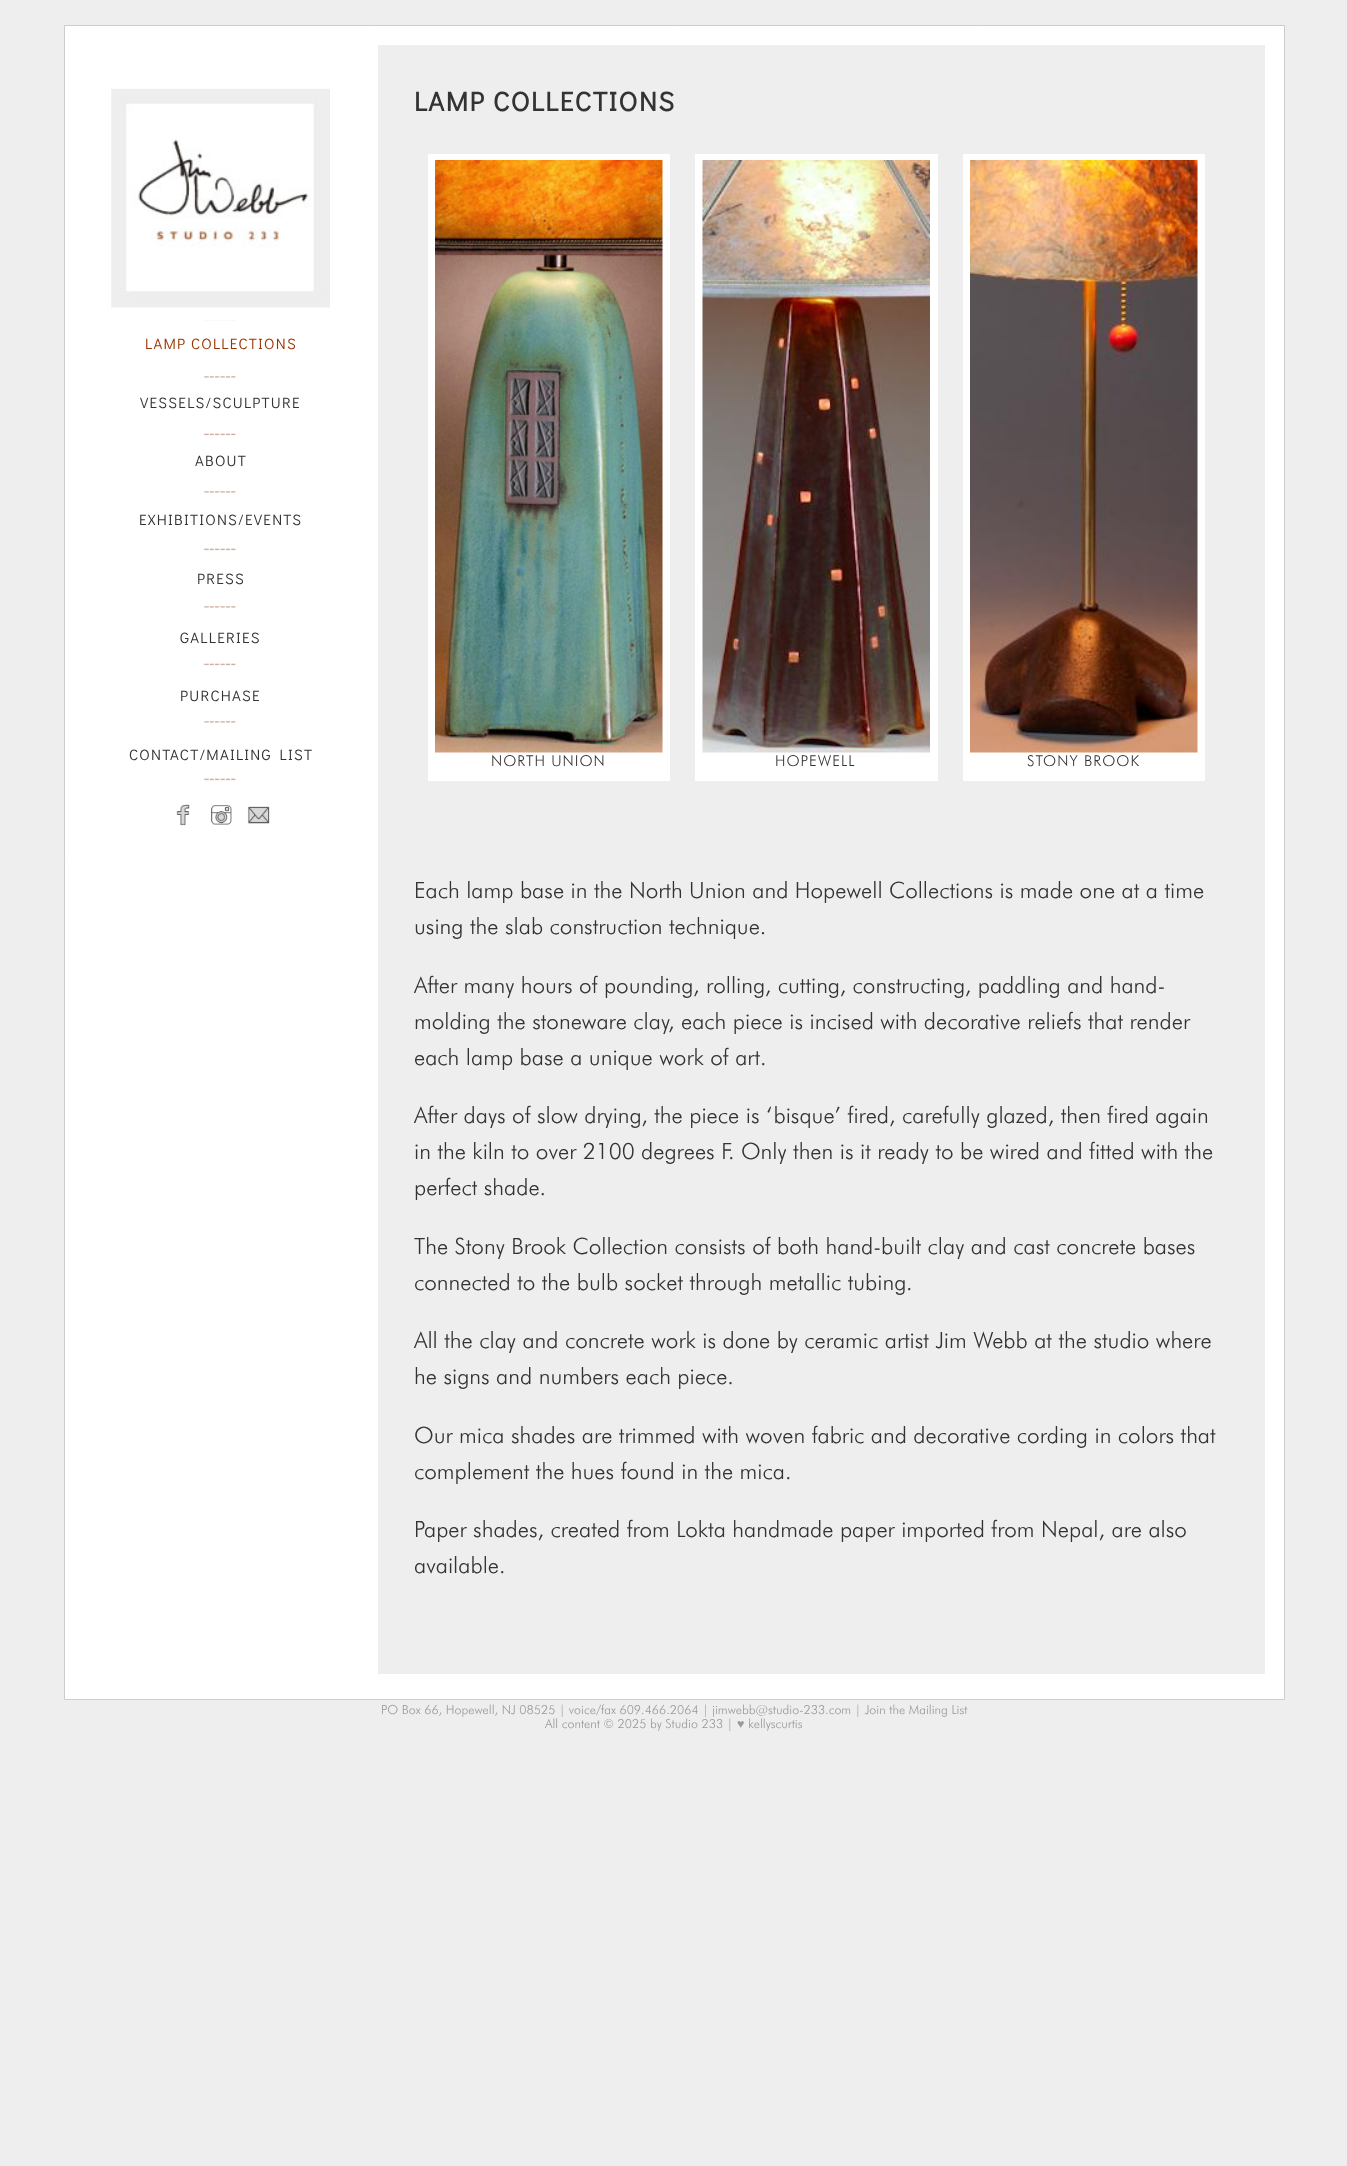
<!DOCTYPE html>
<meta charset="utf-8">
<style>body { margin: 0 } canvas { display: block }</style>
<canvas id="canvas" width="1347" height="2166"></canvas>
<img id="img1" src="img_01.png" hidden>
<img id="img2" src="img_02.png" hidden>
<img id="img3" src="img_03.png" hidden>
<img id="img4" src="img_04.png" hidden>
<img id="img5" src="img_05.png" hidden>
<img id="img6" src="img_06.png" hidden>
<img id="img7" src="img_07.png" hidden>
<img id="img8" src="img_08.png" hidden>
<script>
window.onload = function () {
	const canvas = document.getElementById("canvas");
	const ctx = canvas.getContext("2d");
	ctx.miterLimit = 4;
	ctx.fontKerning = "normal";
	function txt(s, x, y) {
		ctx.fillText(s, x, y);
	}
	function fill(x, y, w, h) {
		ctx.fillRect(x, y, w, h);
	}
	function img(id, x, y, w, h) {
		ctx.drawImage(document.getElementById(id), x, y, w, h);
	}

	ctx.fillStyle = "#EEEEEE";
	fill(0, 0, 1347, 2166);
	ctx.fillStyle = "#FFFFFF";
	ctx.beginPath();
	ctx.rect(64.5, 25.5, 1220, 1674);
	ctx.fill();
	ctx.strokeStyle = "#CCCCCC";
	ctx.stroke();
	img("img1", 111, 88, 219, 220);
	ctx.fillStyle = "#EEEEEE";
	fill(378, 45, 887, 1629);
	ctx.fillStyle = "#FFFFFF";
	fill(428, 154, 242, 627);
	img("img2", 435, 160, 228, 593);
	fill(695, 154, 243, 627);
	img("img3", 702, 160, 228, 593);
	fill(963, 154, 242, 627);
	img("img4", 970, 160, 228, 593);
	img("img5", 203, 320, 34, 461);
	img("img6", 176, 804, 14, 22);
	img("img7", 211, 805, 21, 20);
	img("img8", 247, 806, 23, 18);
	ctx.letterSpacing = "1.5px";
	ctx.font = "bold 27px Didact Gothic";
	ctx.fillStyle = "#333333";
	txt("LAMP COLLECTIONS", 414, 111);
	ctx.letterSpacing = "1px";
	ctx.font = "300 15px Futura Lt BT";
	txt("NORTH UNION", 491, 766);
	txt("HOPEWELL", 775, 766);
	txt("STONY BROOK", 1027, 766);
	ctx.letterSpacing = "0px";
	ctx.font = "300 22.5px Futura Lt BT";
	txt("Each lamp base in the North Union and Hopewell Collections is made one at a time", 414, 898);
	txt("using the slab construction technique.", 414, 934);
	txt("After many hours of pounding, rolling, cutting, constructing, paddling and hand-", 414, 993);
	txt("molding the stoneware clay, each piece is incised with decorative reliefs that render", 414, 1029);
	txt("each lamp base a unique work of art.", 414, 1065);
	txt("After days of slow drying, the piece is ‘bisque’ fired, carefully glazed, then fired again", 414, 1123);
	txt("in the kiln to over 2100 degrees F. Only then is it ready to be wired and fitted with the", 414, 1159);
	txt("perfect shade.", 414, 1195);
	txt("The Stony Brook Collection consists of both hand-built clay and cast concrete bases", 414, 1254);
	txt("connected to the bulb socket through metallic tubing.", 414, 1290);
	txt("All the clay and concrete work is done by ceramic artist Jim Webb at the studio where", 414, 1348);
	txt("he signs and numbers each piece.", 414, 1384);
	txt("Our mica shades are trimmed with woven fabric and decorative cording in colors that", 414, 1443);
	txt("complement the hues found in the mica.", 414, 1479);
	txt("Paper shades, created from Lokta handmade paper imported from Nepal, are also", 414, 1537);
	txt("available.", 414, 1573);
	ctx.letterSpacing = "1.25px";
	ctx.font = "15px Didact Gothic";
	ctx.fillStyle = "#993300";
	txt("LAMP COLLECTIONS", 145, 349);
	ctx.fillStyle = "#333333";
	txt("VESSELS/SCULPTURE", 140, 408);
	txt("ABOUT", 195, 466);
	txt("EXHIBITIONS/EVENTS", 139, 525);
	txt("PRESS", 197, 584);
	txt("GALLERIES", 180, 643);
	txt("PURCHASE", 180, 701);
	txt("CONTACT/MAILING LIST", 129, 760);
	ctx.letterSpacing = "0px";
	ctx.font = "300 12.5px Futura Lt BT";
	ctx.fillStyle = "#999999";
	txt("PO Box 66, Hopewell, NJ 08525 | voice/fax 609.466.2064 | jimwebb@studio-233.com | Join the Mailing List", 381, 1714);
	txt("All content © 2025 by Studio 233 |", 545, 1728);
	ctx.font = "12.5px Liberation Sans";
	txt("♥", 737, 1728);
	ctx.font = "300 12.5px Futura Lt BT";
	txt("kellyscurtis", 748, 1728);
};
</script>
